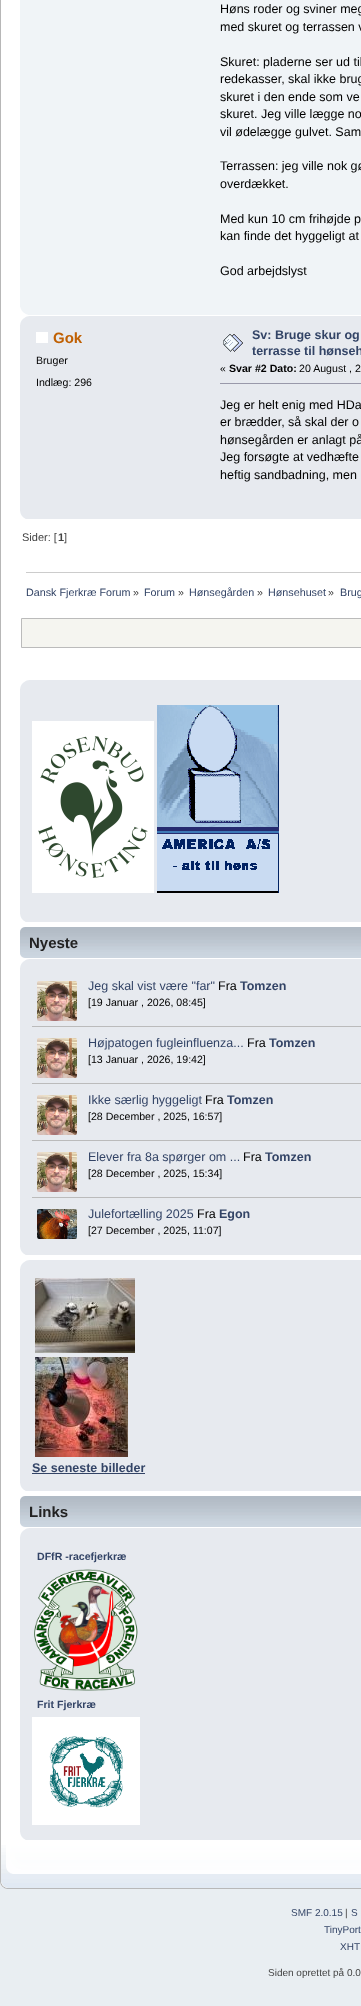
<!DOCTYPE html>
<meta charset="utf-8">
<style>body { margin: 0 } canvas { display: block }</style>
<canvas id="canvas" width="361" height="2006"></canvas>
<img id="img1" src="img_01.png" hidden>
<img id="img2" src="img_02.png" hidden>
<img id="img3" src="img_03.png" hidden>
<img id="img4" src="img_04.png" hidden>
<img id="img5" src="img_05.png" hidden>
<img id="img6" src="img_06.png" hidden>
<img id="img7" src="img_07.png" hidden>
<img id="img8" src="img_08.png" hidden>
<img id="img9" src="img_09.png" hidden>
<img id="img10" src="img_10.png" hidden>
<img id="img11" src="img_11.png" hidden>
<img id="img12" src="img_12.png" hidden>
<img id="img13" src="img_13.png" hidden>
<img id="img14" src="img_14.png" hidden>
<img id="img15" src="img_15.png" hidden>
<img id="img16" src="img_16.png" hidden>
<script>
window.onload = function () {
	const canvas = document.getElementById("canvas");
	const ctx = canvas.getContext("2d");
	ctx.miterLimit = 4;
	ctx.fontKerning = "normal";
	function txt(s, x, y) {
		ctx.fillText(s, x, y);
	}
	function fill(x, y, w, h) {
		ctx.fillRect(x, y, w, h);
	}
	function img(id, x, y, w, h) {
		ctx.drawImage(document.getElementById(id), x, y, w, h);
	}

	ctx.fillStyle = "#E9EEF2";
	fill(0, 0, 361, 2006);
	ctx.fillStyle = "#FFFFFF";
	fill(1, 0, 360, 1845);
	ctx.fillStyle = "#B7B7B7";
	fill(0, 0, 1, 1845);
	ctx.fillStyle = "#F0F4F7";
	fill(20, 0, 341, 315);
	img("img1", 20, 307, 8, 8);
	ctx.fillStyle = "#E7EAEF";
	fill(20, 316, 341, 203);
	img("img2", 20, 316, 9, 9);
	ctx.fillStyle = "#FFFFFF";
	fill(36, 332, 12, 11);
	img("img3", 223, 334, 20, 18);
	ctx.fillStyle = "#9999AA";
	fill(220, 383, 141, 1);
	img("img4", 20, 511, 6, 8);
	ctx.fillStyle = "#CCCCCC";
	fill(26, 572, 335, 1);
	ctx.fillStyle = "#F5F5F0";
	ctx.beginPath();
	ctx.rect(21.5, 618.5, 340, 29);
	ctx.fill();
	ctx.strokeStyle = "#BBBBBB";
	ctx.stroke();
	ctx.fillStyle = "#E7EAEF";
	fill(20, 680, 341, 242);
	img("img2", 20, 680, 9, 9);
	img("img5", 32, 721, 122, 172);
	img("img6", 157, 705, 122, 188);
	img("img4", 20, 914, 6, 8);
	img("img7", 20, 927, 341, 31);
	fill(20, 959, 341, 296);
	img("img2", 20, 959, 9, 9);
	ctx.fillStyle = "#BBBBBB";
	fill(32, 1026, 329, 1);
	img("img8", 37, 981, 40, 40);
	fill(32, 1083, 329, 1);
	img("img9", 37, 1038, 40, 40);
	fill(32, 1140, 329, 1);
	img("img10", 37, 1095, 40, 40);
	fill(32, 1197, 329, 1);
	img("img8", 37, 1152, 40, 40);
	img("img11", 37, 1209, 40, 30);
	img("img4", 20, 1247, 6, 8);
	ctx.fillStyle = "#E7EAEF";
	fill(20, 1260, 341, 231);
	img("img2", 20, 1260, 9, 9);
	img("img12", 35, 1278, 100, 75);
	img("img13", 35, 1357, 93, 100);
	ctx.fillStyle = "#334466";
	fill(32, 1473, 113, 1);
	img("img4", 20, 1483, 6, 8);
	img("img7", 20, 1496, 341, 31);
	ctx.fillStyle = "#E7EAEF";
	fill(20, 1528, 341, 312);
	img("img2", 20, 1528, 9, 9);
	img("img14", 34, 1569, 104, 122);
	img("img15", 32, 1717, 108, 108);
	img("img4", 20, 1832, 6, 8);
	img("img16", 0, 1845, 361, 44);
	ctx.font = "12.5px Liberation Sans";
	ctx.fillStyle = "#000000";
	txt("Høns roder og sviner meg", 220, 13);
	txt("med skuret og terrassen v", 220, 31);
	txt("Skuret: pladerne ser ud til", 220, 66);
	txt("redekasser, skal ikke brug", 220, 83);
	txt("skuret i den ende som ve", 220, 101);
	txt("skuret. Jeg ville lægge no", 220, 118);
	txt("vil ødelægge gulvet. Sam", 220, 136);
	txt("Terrassen: jeg ville nok gø", 220, 170);
	txt("overdækket.", 220, 188);
	txt("Med kun 10 cm frihøjde p", 220, 223);
	txt("kan finde det hyggeligt at", 220, 240);
	txt("God arbejdslyst", 220, 275);
	ctx.font = "bold 15px Liberation Sans";
	ctx.fillStyle = "#C06002";
	txt("Gok", 53, 343);
	ctx.font = "10.6px Liberation Sans";
	ctx.fillStyle = "#000000";
	txt("Bruger", 36, 364);
	txt("Indlæg: 296", 36, 386);
	ctx.font = "bold 12.5px Liberation Sans";
	ctx.fillStyle = "#334466";
	txt("Sv: Bruge skur og", 252, 339);
	txt("terrasse til hønseh", 252, 355);
	ctx.font = "10.6px Liberation Sans";
	ctx.fillStyle = "#000000";
	txt("«", 220, 372);
	ctx.font = "bold 10.6px Liberation Sans";
	txt("Svar #2 Dato:", 229, 372);
	ctx.font = "10.6px Liberation Sans";
	txt("20 August , 2", 299, 372);
	ctx.font = "12.5px Liberation Sans";
	txt("Jeg er helt enig med HDa", 220, 409);
	txt("er brædder, så skal der o", 220, 426);
	txt("hønsegården er anlagt på", 220, 444);
	txt("Jeg forsøgte at vedhæfte", 220, 461);
	txt("heftig sandbadning, men", 220, 479);
	ctx.font = "11px Liberation Sans";
	ctx.fillStyle = "#444444";
	txt("Sider: [", 22, 541);
	ctx.font = "bold 11px Liberation Sans";
	txt("1", 58, 541);
	ctx.font = "11px Liberation Sans";
	txt("]", 64, 541);
	ctx.font = "10.75px Liberation Sans";
	ctx.fillStyle = "#334466";
	txt("Dansk Fjerkræ Forum", 26, 596);
	ctx.fillStyle = "#444444";
	txt("»", 133, 596);
	ctx.fillStyle = "#334466";
	txt("Forum", 144, 596);
	ctx.fillStyle = "#444444";
	txt("»", 178, 596);
	ctx.fillStyle = "#334466";
	txt("Hønsegården", 189, 596);
	ctx.fillStyle = "#444444";
	txt("»", 257, 596);
	ctx.fillStyle = "#334466";
	txt("Hønsehuset", 268, 596);
	ctx.fillStyle = "#444444";
	txt("»", 328, 596);
	ctx.fillStyle = "#334466";
	txt("Brug", 340, 596);
	ctx.font = "bold 15px Liberation Sans";
	ctx.fillStyle = "#222222";
	txt("Nyeste", 29, 948);
	ctx.font = "12.5px Liberation Sans";
	ctx.fillStyle = "#334466";
	txt("Jeg skal vist være \"far\"", 88, 990);
	ctx.fillStyle = "#000000";
	txt("Fra", 218, 990);
	ctx.font = "bold 12.5px Liberation Sans";
	ctx.fillStyle = "#334466";
	txt("Tomzen", 240, 990);
	ctx.font = "10.6px Liberation Sans";
	ctx.fillStyle = "#000000";
	txt("[19 Januar , 2026, 08:45]", 88, 1006);
	ctx.font = "12.5px Liberation Sans";
	ctx.fillStyle = "#334466";
	txt("Højpatogen fugleinfluenza...", 88, 1047);
	ctx.fillStyle = "#000000";
	txt("Fra", 247, 1047);
	ctx.font = "bold 12.5px Liberation Sans";
	ctx.fillStyle = "#334466";
	txt("Tomzen", 269, 1047);
	ctx.font = "10.6px Liberation Sans";
	ctx.fillStyle = "#000000";
	txt("[13 Januar , 2026, 19:42]", 88, 1063);
	ctx.font = "12.5px Liberation Sans";
	ctx.fillStyle = "#334466";
	txt("Ikke særlig hyggeligt", 88, 1104);
	ctx.fillStyle = "#000000";
	txt("Fra", 205, 1104);
	ctx.font = "bold 12.5px Liberation Sans";
	ctx.fillStyle = "#334466";
	txt("Tomzen", 227, 1104);
	ctx.font = "10.6px Liberation Sans";
	ctx.fillStyle = "#000000";
	txt("[28 December , 2025, 16:57]", 88, 1120);
	ctx.font = "12.5px Liberation Sans";
	ctx.fillStyle = "#334466";
	txt("Elever fra 8a spørger om ...", 88, 1161);
	ctx.fillStyle = "#000000";
	txt("Fra", 243, 1161);
	ctx.font = "bold 12.5px Liberation Sans";
	ctx.fillStyle = "#334466";
	txt("Tomzen", 265, 1161);
	ctx.font = "10.6px Liberation Sans";
	ctx.fillStyle = "#000000";
	txt("[28 December , 2025, 15:34]", 88, 1177);
	ctx.font = "12.5px Liberation Sans";
	ctx.fillStyle = "#334466";
	txt("Julefortælling 2025", 88, 1218);
	ctx.fillStyle = "#000000";
	txt("Fra", 197, 1218);
	ctx.font = "bold 12.5px Liberation Sans";
	ctx.fillStyle = "#334466";
	txt("Egon", 219, 1218);
	ctx.font = "10.6px Liberation Sans";
	ctx.fillStyle = "#000000";
	txt("[27 December , 2025, 11:07]", 88, 1234);
	ctx.font = "bold 12.5px Liberation Sans";
	ctx.fillStyle = "#334466";
	txt("Se seneste billeder", 32, 1472);
	ctx.font = "bold 15px Liberation Sans";
	ctx.fillStyle = "#222222";
	txt("Links", 29, 1517);
	ctx.font = "bold 10.6px Liberation Sans";
	ctx.fillStyle = "#334466";
	txt("DFfR -racefjerkræ", 37, 1560);
	txt("Frit Fjerkræ", 37, 1708);
	ctx.font = "10px Liberation Sans";
	txt("SMF 2.0.15", 291, 1916);
	ctx.fillStyle = "#444444";
	txt("|", 345, 1916);
	ctx.fillStyle = "#334466";
	txt("S", 351, 1916);
	txt("TinyPort", 324, 1933);
	txt("XHT", 340, 1950);
	ctx.fillStyle = "#444444";
	txt("Siden oprettet på 0.0", 268, 1976);
};
</script>
